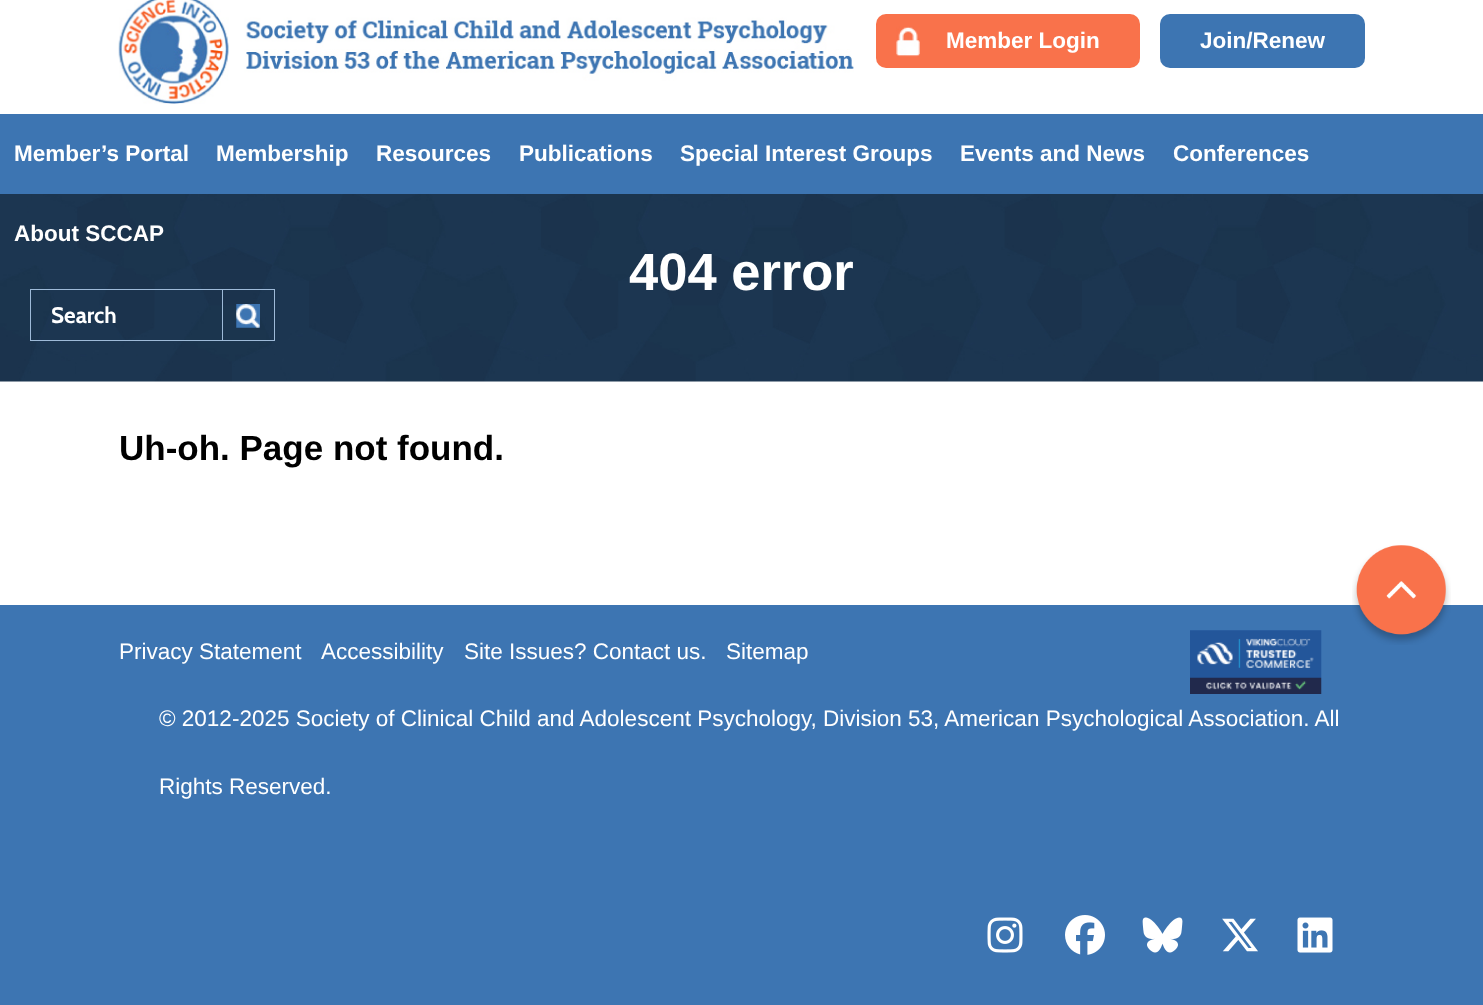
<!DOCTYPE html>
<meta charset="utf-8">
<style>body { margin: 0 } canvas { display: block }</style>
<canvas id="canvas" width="1483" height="1005"></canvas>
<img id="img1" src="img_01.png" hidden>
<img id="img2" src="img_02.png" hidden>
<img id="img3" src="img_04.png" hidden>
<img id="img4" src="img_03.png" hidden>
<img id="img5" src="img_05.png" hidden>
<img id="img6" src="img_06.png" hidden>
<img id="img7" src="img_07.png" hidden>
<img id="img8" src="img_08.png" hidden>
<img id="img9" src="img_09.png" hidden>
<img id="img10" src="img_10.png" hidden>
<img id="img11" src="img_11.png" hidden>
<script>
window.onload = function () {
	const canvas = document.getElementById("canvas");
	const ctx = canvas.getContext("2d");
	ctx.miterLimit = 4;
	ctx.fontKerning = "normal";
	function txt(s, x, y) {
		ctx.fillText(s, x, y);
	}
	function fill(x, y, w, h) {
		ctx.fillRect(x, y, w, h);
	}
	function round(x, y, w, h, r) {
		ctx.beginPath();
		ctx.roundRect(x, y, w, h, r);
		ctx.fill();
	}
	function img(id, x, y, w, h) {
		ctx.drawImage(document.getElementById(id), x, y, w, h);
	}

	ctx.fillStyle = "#FFFFFF";
	fill(0, 0, 1483, 1005);
	img("img1", 118, 0, 736, 104);
	ctx.fillStyle = "#F9724B";
	round(876, 14, 264, 54, 10);
	img("img2", 896, 26, 24, 31);
	ctx.fillStyle = "#3D75B2";
	round(1160, 14, 205, 54, 10);
	fill(0, 114, 1483, 80);
	img("img3", 0, 194, 1483, 188);
	ctx.strokeStyle = "#9EBAD8";
	ctx.strokeRect(30.5, 289.5, 192, 51);
	img("img4", 236, 304, 24, 24);
	ctx.fillStyle = "#9EBAD8";
	fill(223, 289, 52, 1);
	fill(274, 289, 1, 52);
	fill(223, 340, 52, 1);
	ctx.fillStyle = "#3D75B2";
	fill(0, 605, 1483, 400);
	img("img5", 1352, 545, 99, 100);
	img("img6", 1190, 630, 132, 64);
	img("img7", 987, 917, 36, 36);
	img("img8", 1065, 915, 40, 40);
	img("img9", 1142, 917, 41, 36);
	img("img10", 1222, 918, 36, 34);
	img("img11", 1297, 917, 36, 36);
	ctx.font = "bold 22.5px Liberation Sans";
	ctx.fillStyle = "#FFFFFF";
	txt("Member Login", 946, 48);
	txt("Join/Renew", 1200, 48);
	txt("Member’s Portal", 14, 161);
	txt("Membership", 216, 161);
	txt("Resources", 376, 161);
	txt("Publications", 519, 161);
	txt("Special Interest Groups", 680, 161);
	txt("Events and News", 960, 161);
	txt("Conferences", 1173, 161);
	txt("About SCCAP", 14, 241);
	ctx.font = "bold 22.5px Cabin";
	txt("Search", 51, 323);
	ctx.font = "bold 52.5px Liberation Sans";
	txt("404 error", 629, 290);
	ctx.font = "bold 35px Liberation Sans";
	ctx.fillStyle = "#000000";
	txt("Uh-oh. Page not found.", 119, 460);
	ctx.font = "22.5px Liberation Sans";
	ctx.fillStyle = "#FFFFFF";
	txt("Privacy Statement", 119, 659);
	txt("Accessibility", 321, 659);
	txt("Site Issues? Contact us.", 464, 659);
	txt("Sitemap", 726, 659);
	txt("© 2012-2025 Society of Clinical Child and Adolescent Psychology, Division 53, American Psychological Association. All", 159, 726);
	txt("Rights Reserved.", 159, 794);
};
</script>
